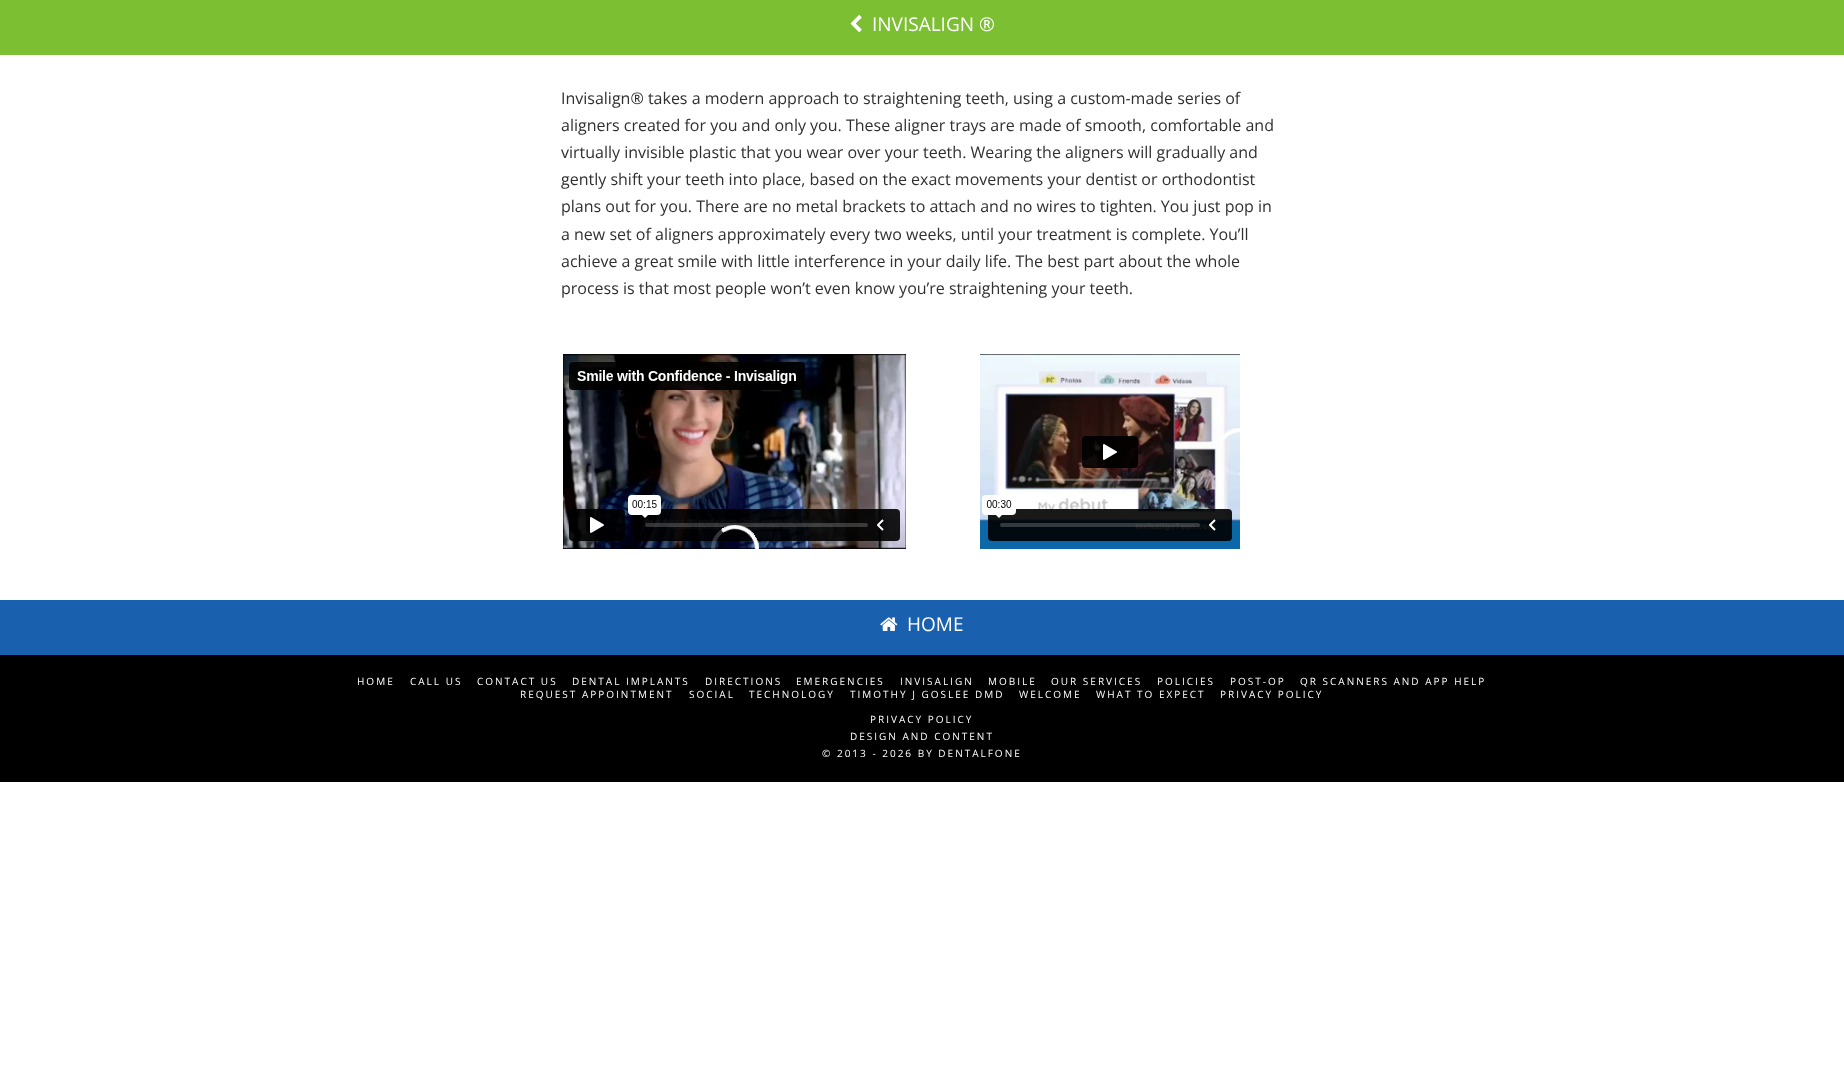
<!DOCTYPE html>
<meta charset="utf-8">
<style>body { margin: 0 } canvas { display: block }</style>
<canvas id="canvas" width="1844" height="1067"></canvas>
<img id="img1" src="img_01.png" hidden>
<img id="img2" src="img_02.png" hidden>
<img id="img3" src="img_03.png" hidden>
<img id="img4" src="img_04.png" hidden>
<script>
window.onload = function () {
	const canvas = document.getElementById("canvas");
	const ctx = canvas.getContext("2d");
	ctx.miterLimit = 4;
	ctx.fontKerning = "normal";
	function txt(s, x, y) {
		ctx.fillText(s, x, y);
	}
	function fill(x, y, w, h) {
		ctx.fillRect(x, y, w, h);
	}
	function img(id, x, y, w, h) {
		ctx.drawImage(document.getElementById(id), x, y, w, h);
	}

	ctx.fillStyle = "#FFFFFF";
	fill(0, 0, 1844, 1067);
	ctx.fillStyle = "#7CBF32";
	fill(0, 0, 1844, 55);
	img("img1", 850, 15, 12, 17);
	img("img2", 563, 354, 343, 195);
	img("img3", 980, 354, 260, 195);
	ctx.fillStyle = "#1960AF";
	fill(0, 600, 1844, 55);
	img("img4", 880, 617, 18, 14);
	ctx.fillStyle = "#000000";
	fill(0, 655, 1844, 127);
	ctx.font = "19px Open Sans";
	ctx.fillStyle = "#FFFFFF";
	txt("INVISALIGN ®", 872, 31);
	ctx.font = "16px Open Sans";
	ctx.fillStyle = "#303030";
	txt("Invisalign® takes a modern approach to straightening teeth, using a custom-made series of", 561, 104);
	txt("aligners created for you and only you. These aligner trays are made of smooth, comfortable and", 561, 131);
	txt("virtually invisible plastic that you wear over your teeth. Wearing the aligners will gradually and", 561, 158);
	txt("gently shift your teeth into place, based on the exact movements your dentist or orthodontist", 561, 185);
	txt("plans out for you. There are no metal brackets to attach and no wires to tighten. You just pop in", 561, 212);
	txt("a new set of aligners approximately every two weeks, until your treatment is complete. You’ll", 561, 240);
	txt("achieve a great smile with little interference in your daily life. The best part about the whole", 561, 267);
	txt("process is that most people won’t even know you’re straightening your teeth.", 561, 294);
	ctx.font = "19px Open Sans";
	ctx.fillStyle = "#FFFFFF";
	txt("HOME", 907, 631);
	ctx.letterSpacing = "2px";
	ctx.font = "10px Open Sans";
	txt("HOME", 357, 685);
	txt("CALL US", 410, 685);
	txt("CONTACT US", 477, 685);
	txt("DENTAL IMPLANTS", 572, 685);
	txt("DIRECTIONS", 705, 685);
	txt("EMERGENCIES", 796, 685);
	txt("INVISALIGN", 900, 685);
	txt("MOBILE", 988, 685);
	txt("OUR SERVICES", 1051, 685);
	txt("POLICIES", 1157, 685);
	txt("POST-OP", 1230, 685);
	txt("QR SCANNERS AND APP HELP", 1300, 685);
	txt("REQUEST APPOINTMENT", 520, 698);
	txt("SOCIAL", 689, 698);
	txt("TECHNOLOGY", 749, 698);
	txt("TIMOTHY J GOSLEE DMD", 850, 698);
	txt("WELCOME", 1019, 698);
	txt("WHAT TO EXPECT", 1096, 698);
	txt("PRIVACY POLICY", 1220, 698);
	txt("PRIVACY POLICY", 870, 723);
	txt("DESIGN AND CONTENT", 850, 740);
	txt("© 2013 - 2026 BY DENTALFONE", 822, 757);
};
</script>
